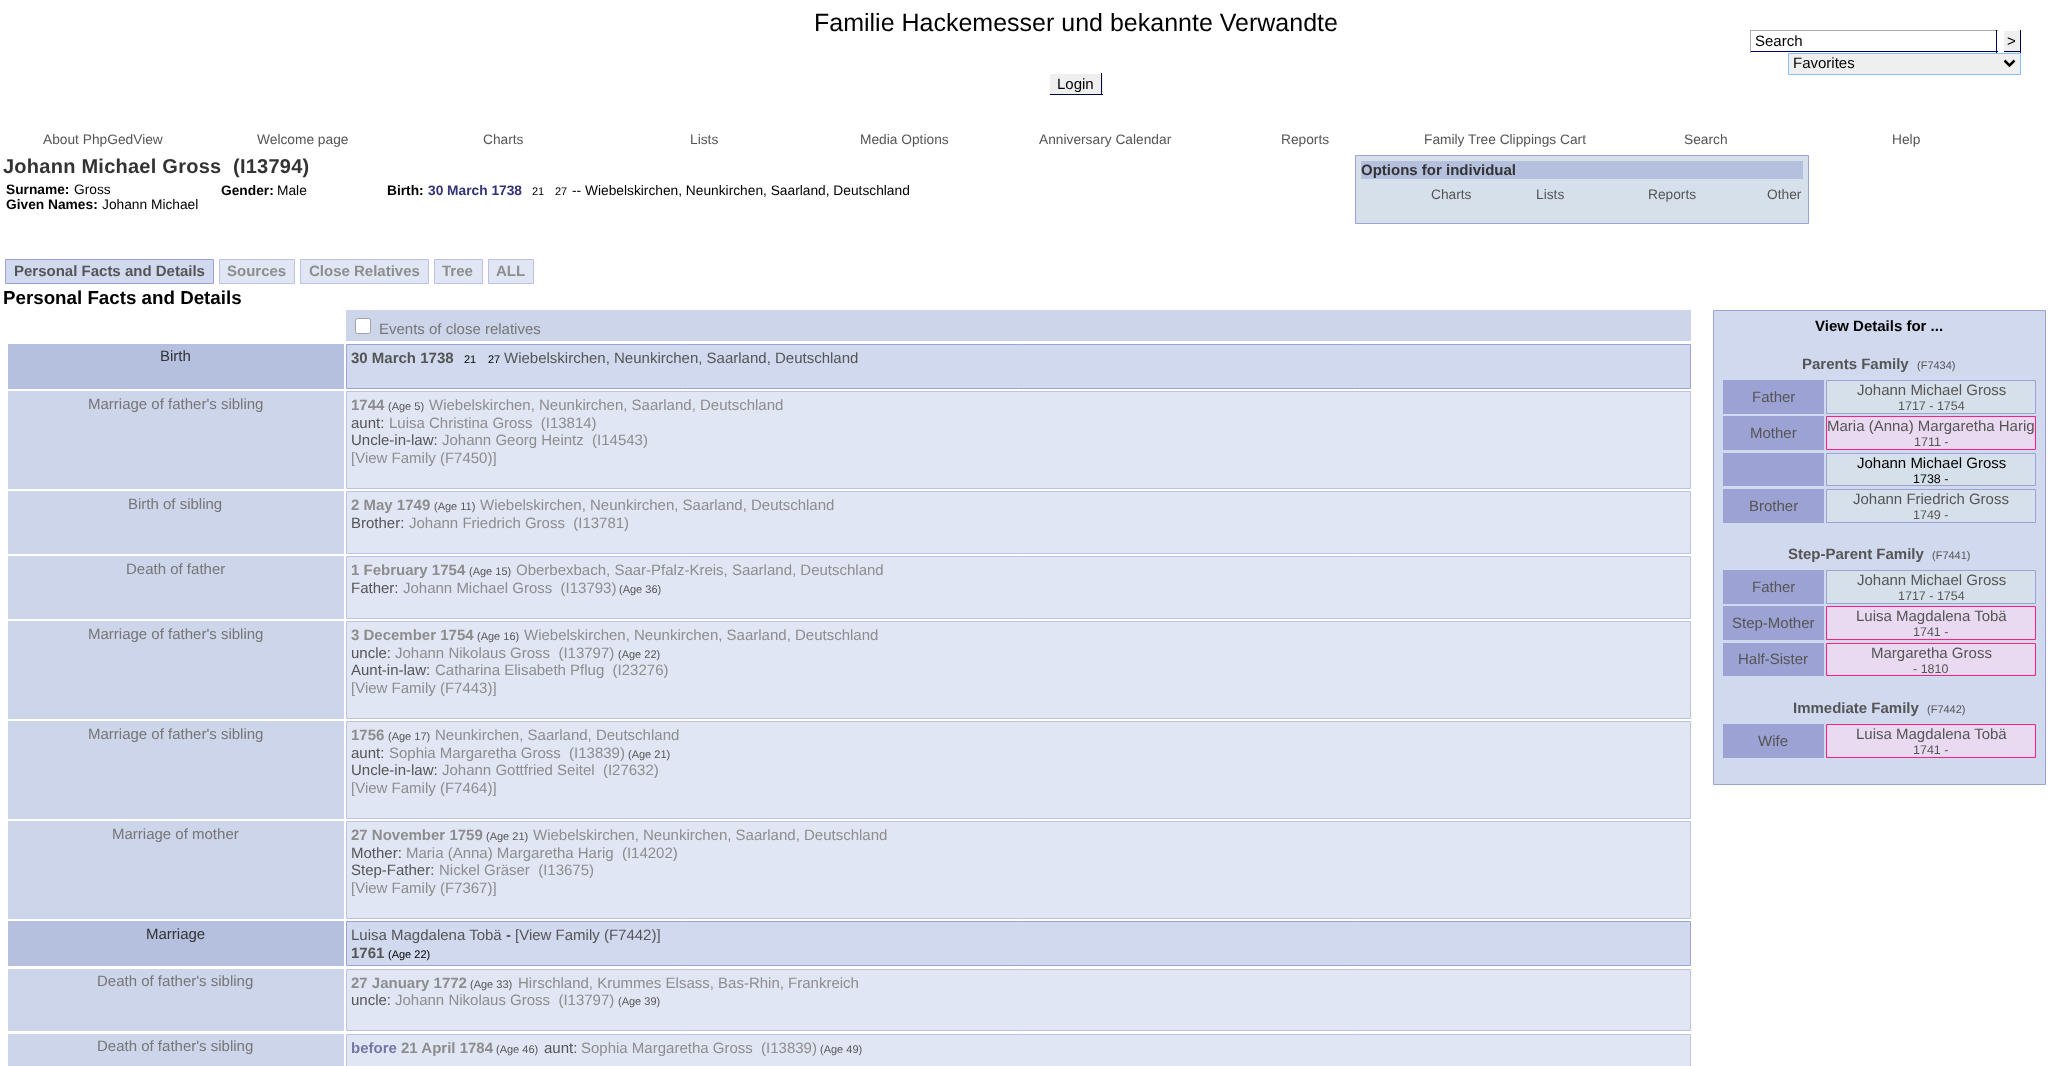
<!DOCTYPE html>
<meta charset="utf-8">
<style>body { margin: 0 } canvas { display: block }</style>
<canvas id="canvas" width="2050" height="1066"></canvas>
<script>
window.onload = function () {
	const canvas = document.getElementById("canvas");
	const ctx = canvas.getContext("2d");
	ctx.miterLimit = 4;
	ctx.fontKerning = "normal";
	function txt(s, x, y) {
		ctx.fillText(s, x, y);
	}
	function fill(x, y, w, h) {
		ctx.fillRect(x, y, w, h);
	}

	ctx.fillStyle = "#FFFFFF";
	fill(0, 0, 2050, 1066);
	ctx.fillStyle = "#EFEFEF";
	fill(1050, 74, 53, 20);
	ctx.fillStyle = "#000044";
	fill(1101, 73, 1, 22);
	fill(1049, 94, 54, 1);
	ctx.fillStyle = "#FFFFFF";
	fill(1049, 94, 1, 1);
	ctx.fillStyle = "#AAAAAA";
	fill(1750, 30, 248, 1);
	ctx.fillStyle = "#000066";
	fill(1996, 30, 1, 23);
	fill(1750, 51, 248, 1);
	ctx.fillStyle = "#AAAAAA";
	fill(1750, 30, 1, 23);
	ctx.fillStyle = "#EFEFEF";
	fill(2004, 31, 16, 22);
	ctx.fillStyle = "#000044";
	fill(2020, 30, 1, 23);
	fill(2003, 51, 18, 1);
	ctx.fillStyle = "#FFFFFF";
	fill(2003, 51, 1, 2);
	ctx.fillStyle = "#EFEFEF";
	ctx.beginPath();
	ctx.rect(1788.5, 53.5, 232, 21);
	ctx.fill();
	ctx.strokeStyle = "#84BEFF";
	ctx.stroke();
	ctx.beginPath();
	ctx.moveTo(2004.5, 60.5);
	ctx.lineTo(2009.5, 65.5);
	ctx.lineTo(2014.5, 60.5);
	ctx.strokeStyle = "#000000";
	ctx.lineWidth = 2.5;
	ctx.stroke();
	ctx.fillStyle = "#D6E0EA";
	ctx.beginPath();
	ctx.rect(1355.5, 155.5, 453, 68);
	ctx.fill();
	ctx.strokeStyle = "#9CA3D4";
	ctx.lineWidth = 1;
	ctx.stroke();
	ctx.fillStyle = "#B5C0DF";
	fill(1361, 161, 442, 18);
	ctx.fillStyle = "#D1D9EF";
	ctx.beginPath();
	ctx.rect(5.5, 259.5, 208, 24);
	ctx.fill();
	ctx.stroke();
	ctx.fillStyle = "#E0E6F4";
	ctx.beginPath();
	ctx.rect(219.5, 259.5, 75, 24);
	ctx.fill();
	ctx.strokeStyle = "#BDC1E2";
	ctx.stroke();
	ctx.beginPath();
	ctx.rect(300.5, 259.5, 128, 24);
	ctx.fill();
	ctx.stroke();
	ctx.beginPath();
	ctx.rect(434.5, 259.5, 48, 24);
	ctx.fill();
	ctx.stroke();
	ctx.beginPath();
	ctx.rect(488.5, 259.5, 45, 24);
	ctx.fill();
	ctx.stroke();
	ctx.fillStyle = "#CDD5EA";
	fill(346, 310, 1345, 31);
	ctx.fillStyle = "#FFFFFF";
	ctx.beginPath();
	ctx.roundRect(355.5, 318.5, 15, 15, 2);
	ctx.fill();
	ctx.strokeStyle = "#A3A3A3";
	ctx.stroke();
	ctx.fillStyle = "#B5C0DF";
	fill(8, 344, 336, 45);
	ctx.fillStyle = "#D1D9EF";
	ctx.beginPath();
	ctx.rect(346.5, 344.5, 1344, 44);
	ctx.fill();
	ctx.strokeStyle = "#9CA3D4";
	ctx.stroke();
	ctx.fillStyle = "#CDD5EA";
	fill(8, 391, 336, 98);
	ctx.fillStyle = "#E0E6F4";
	ctx.beginPath();
	ctx.rect(346.5, 391.5, 1344, 97);
	ctx.fill();
	ctx.strokeStyle = "#BDC1E2";
	ctx.stroke();
	ctx.fillStyle = "#CDD5EA";
	fill(8, 491, 336, 63);
	ctx.fillStyle = "#E0E6F4";
	ctx.beginPath();
	ctx.rect(346.5, 491.5, 1344, 62);
	ctx.fill();
	ctx.stroke();
	ctx.fillStyle = "#CDD5EA";
	fill(8, 556, 336, 63);
	ctx.fillStyle = "#E0E6F4";
	ctx.beginPath();
	ctx.rect(346.5, 556.5, 1344, 62);
	ctx.fill();
	ctx.stroke();
	ctx.fillStyle = "#CDD5EA";
	fill(8, 621, 336, 98);
	ctx.fillStyle = "#E0E6F4";
	ctx.beginPath();
	ctx.rect(346.5, 621.5, 1344, 97);
	ctx.fill();
	ctx.stroke();
	ctx.fillStyle = "#CDD5EA";
	fill(8, 721, 336, 98);
	ctx.fillStyle = "#E0E6F4";
	ctx.beginPath();
	ctx.rect(346.5, 721.5, 1344, 97);
	ctx.fill();
	ctx.stroke();
	ctx.fillStyle = "#CDD5EA";
	fill(8, 821, 336, 98);
	ctx.fillStyle = "#E0E6F4";
	ctx.beginPath();
	ctx.rect(346.5, 821.5, 1344, 97);
	ctx.fill();
	ctx.stroke();
	ctx.fillStyle = "#B5C0DF";
	fill(8, 921, 336, 45);
	ctx.fillStyle = "#D1D9EF";
	ctx.beginPath();
	ctx.rect(346.5, 921.5, 1344, 44);
	ctx.fill();
	ctx.strokeStyle = "#9CA3D4";
	ctx.stroke();
	ctx.fillStyle = "#CDD5EA";
	fill(8, 969, 336, 62);
	ctx.fillStyle = "#E0E6F4";
	ctx.beginPath();
	ctx.rect(346.5, 969.5, 1344, 61);
	ctx.fill();
	ctx.strokeStyle = "#BDC1E2";
	ctx.stroke();
	ctx.fillStyle = "#CDD5EA";
	fill(8, 1034, 336, 32);
	ctx.fillStyle = "#E0E6F4";
	ctx.beginPath();
	ctx.rect(346.5, 1034.5, 1344, 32);
	ctx.fill();
	ctx.stroke();
	ctx.fillStyle = "#D1D9EF";
	ctx.beginPath();
	ctx.rect(1713.5, 310.5, 332, 474);
	ctx.fill();
	ctx.strokeStyle = "#9CA3D4";
	ctx.stroke();
	ctx.fillStyle = "#9CA3D4";
	fill(1723, 380, 101, 34);
	ctx.fillStyle = "#D6E0EA";
	ctx.beginPath();
	ctx.rect(1826.5, 380.5, 209, 33);
	ctx.fill();
	ctx.stroke();
	ctx.fillStyle = "#9CA3D4";
	fill(1723, 416, 101, 34);
	ctx.fillStyle = "#E9DAF1";
	ctx.beginPath();
	ctx.rect(1826.5, 416.5, 209, 33);
	ctx.fill();
	ctx.strokeStyle = "#FF2080";
	ctx.stroke();
	ctx.fillStyle = "#9CA3D4";
	fill(1723, 453, 101, 33);
	ctx.fillStyle = "#D6E0EA";
	ctx.beginPath();
	ctx.rect(1826.5, 453.5, 209, 32);
	ctx.fill();
	ctx.strokeStyle = "#9CA3D4";
	ctx.stroke();
	ctx.fillStyle = "#9CA3D4";
	fill(1723, 489, 101, 34);
	ctx.fillStyle = "#D6E0EA";
	ctx.beginPath();
	ctx.rect(1826.5, 489.5, 209, 33);
	ctx.fill();
	ctx.stroke();
	ctx.fillStyle = "#9CA3D4";
	fill(1723, 570, 101, 34);
	ctx.fillStyle = "#D6E0EA";
	ctx.beginPath();
	ctx.rect(1826.5, 570.5, 209, 33);
	ctx.fill();
	ctx.stroke();
	ctx.fillStyle = "#9CA3D4";
	fill(1723, 606, 101, 34);
	ctx.fillStyle = "#E9DAF1";
	ctx.beginPath();
	ctx.rect(1826.5, 606.5, 209, 33);
	ctx.fill();
	ctx.strokeStyle = "#FF2080";
	ctx.stroke();
	ctx.fillStyle = "#9CA3D4";
	fill(1723, 643, 101, 33);
	ctx.fillStyle = "#E9DAF1";
	ctx.beginPath();
	ctx.rect(1826.5, 643.5, 209, 32);
	ctx.fill();
	ctx.stroke();
	ctx.fillStyle = "#9CA3D4";
	fill(1723, 724, 101, 34);
	ctx.fillStyle = "#E9DAF1";
	ctx.beginPath();
	ctx.rect(1826.5, 724.5, 209, 33);
	ctx.fill();
	ctx.stroke();
	ctx.font = "25px Liberation Sans";
	ctx.fillStyle = "#000000";
	txt("Familie Hackemesser und bekannte Verwandte", 814, 31);
	ctx.font = "15px Liberation Sans";
	txt("Login", 1057, 89);
	txt("Search", 1755, 46);
	txt(">", 2007, 46);
	txt("Favorites", 1793, 68);
	ctx.font = "13.75px Liberation Sans";
	ctx.fillStyle = "#555555";
	txt("About PhpGedView", 43, 144);
	txt("Welcome page", 257, 144);
	txt("Charts", 483, 144);
	txt("Lists", 690, 144);
	txt("Media Options", 860, 144);
	txt("Anniversary Calendar", 1039, 144);
	txt("Reports", 1281, 144);
	txt("Family Tree Clippings Cart", 1424, 144);
	txt("Search", 1684, 144);
	txt("Help", 1892, 144);
	ctx.letterSpacing = "0.25px";
	ctx.font = "bold 20px Liberation Sans";
	ctx.fillStyle = "#333333";
	txt("Johann Michael Gross", 3, 173);
	txt("(I13794)", 233, 173);
	ctx.letterSpacing = "0px";
	ctx.font = "bold 13.75px Liberation Sans";
	ctx.fillStyle = "#000000";
	txt("Surname:", 6, 194);
	ctx.font = "13.75px Liberation Sans";
	txt("Gross", 74, 194);
	ctx.font = "bold 13.75px Liberation Sans";
	txt("Given Names:", 6, 209);
	ctx.font = "13.75px Liberation Sans";
	txt("Johann Michael", 102, 209);
	ctx.font = "bold 13.75px Liberation Sans";
	txt("Gender:", 221, 195);
	ctx.font = "13.75px Liberation Sans";
	txt("Male", 277, 195);
	ctx.font = "bold 13.75px Liberation Sans";
	txt("Birth:", 387, 195);
	ctx.fillStyle = "#333377";
	txt("30 March 1738", 428, 195);
	ctx.font = "11px Liberation Sans";
	ctx.fillStyle = "#000000";
	txt("21", 532, 195);
	txt("27", 555, 195);
	ctx.font = "13.75px Liberation Sans";
	txt("-- Wiebelskirchen, Neunkirchen, Saarland, Deutschland", 572, 195);
	ctx.font = "bold 15px Liberation Sans";
	ctx.fillStyle = "#333333";
	txt("Options for individual", 1361, 175);
	ctx.font = "13.75px Liberation Sans";
	ctx.fillStyle = "#555555";
	txt("Charts", 1431, 199);
	txt("Lists", 1536, 199);
	txt("Reports", 1648, 199);
	txt("Other", 1767, 199);
	ctx.font = "bold 15px Liberation Sans";
	txt("Personal Facts and Details", 14, 276);
	ctx.fillStyle = "#8D8D8D";
	txt("Sources", 227, 276);
	txt("Close Relatives", 309, 276);
	txt("Tree", 442, 276);
	txt("ALL", 496, 276);
	ctx.font = "bold 18.75px Liberation Sans";
	ctx.fillStyle = "#000000";
	txt("Personal Facts and Details", 3, 304);
	ctx.font = "15px Liberation Sans";
	ctx.fillStyle = "#767676";
	txt("Events of close relatives", 379, 334);
	ctx.fillStyle = "#333333";
	txt("Birth", 160, 361);
	ctx.font = "bold 15px Liberation Sans";
	ctx.fillStyle = "#555555";
	txt("30 March 1738", 351, 363);
	ctx.font = "11px Liberation Sans";
	ctx.fillStyle = "#000000";
	txt("21", 464, 363);
	txt("27", 488, 363);
	ctx.font = "15px Liberation Sans";
	ctx.fillStyle = "#555555";
	txt("Wiebelskirchen, Neunkirchen, Saarland, Deutschland", 504, 363);
	ctx.fillStyle = "#767676";
	txt("Marriage of father's sibling", 88, 409);
	ctx.font = "bold 15px Liberation Sans";
	ctx.fillStyle = "#8D8D8D";
	txt("1744", 351, 410);
	ctx.font = "11px Liberation Sans";
	ctx.fillStyle = "#555555";
	txt("(Age 5)", 388, 410);
	ctx.font = "15px Liberation Sans";
	ctx.fillStyle = "#8D8D8D";
	txt("Wiebelskirchen, Neunkirchen, Saarland, Deutschland", 429, 410);
	ctx.fillStyle = "#555555";
	txt("aunt:", 351, 428);
	ctx.fillStyle = "#8D8D8D";
	txt("Luisa Christina Gross  (I13814)", 389, 428);
	ctx.fillStyle = "#555555";
	txt("Uncle-in-law:", 351, 445);
	ctx.fillStyle = "#8D8D8D";
	txt("Johann Georg Heintz  (I14543)", 442, 445);
	txt("[View Family (F7450)]", 351, 463);
	ctx.fillStyle = "#767676";
	txt("Birth of sibling", 128, 509);
	ctx.font = "bold 15px Liberation Sans";
	ctx.fillStyle = "#8D8D8D";
	txt("2 May 1749", 351, 510);
	ctx.font = "11px Liberation Sans";
	ctx.fillStyle = "#555555";
	txt("(Age 11)", 434, 510);
	ctx.font = "15px Liberation Sans";
	ctx.fillStyle = "#8D8D8D";
	txt("Wiebelskirchen, Neunkirchen, Saarland, Deutschland", 480, 510);
	ctx.fillStyle = "#555555";
	txt("Brother:", 351, 528);
	ctx.fillStyle = "#8D8D8D";
	txt("Johann Friedrich Gross  (I13781)", 409, 528);
	ctx.fillStyle = "#767676";
	txt("Death of father", 126, 574);
	ctx.font = "bold 15px Liberation Sans";
	ctx.fillStyle = "#8D8D8D";
	txt("1 February 1754", 351, 575);
	ctx.font = "11px Liberation Sans";
	ctx.fillStyle = "#555555";
	txt("(Age 15)", 469, 575);
	ctx.font = "15px Liberation Sans";
	ctx.fillStyle = "#8D8D8D";
	txt("Oberbexbach, Saar-Pfalz-Kreis, Saarland, Deutschland", 516, 575);
	ctx.fillStyle = "#555555";
	txt("Father:", 351, 593);
	ctx.fillStyle = "#8D8D8D";
	txt("Johann Michael Gross  (I13793)", 403, 593);
	ctx.font = "11px Liberation Sans";
	ctx.fillStyle = "#555555";
	txt("(Age 36)", 619, 593);
	ctx.font = "15px Liberation Sans";
	ctx.fillStyle = "#767676";
	txt("Marriage of father's sibling", 88, 639);
	ctx.font = "bold 15px Liberation Sans";
	ctx.fillStyle = "#8D8D8D";
	txt("3 December 1754", 351, 640);
	ctx.font = "11px Liberation Sans";
	ctx.fillStyle = "#555555";
	txt("(Age 16)", 477, 640);
	ctx.font = "15px Liberation Sans";
	ctx.fillStyle = "#8D8D8D";
	txt("Wiebelskirchen, Neunkirchen, Saarland, Deutschland", 524, 640);
	ctx.fillStyle = "#555555";
	txt("uncle:", 351, 658);
	ctx.fillStyle = "#8D8D8D";
	txt("Johann Nikolaus Gross  (I13797)", 395, 658);
	ctx.font = "11px Liberation Sans";
	ctx.fillStyle = "#555555";
	txt("(Age 22)", 618, 658);
	ctx.font = "15px Liberation Sans";
	txt("Aunt-in-law:", 351, 675);
	ctx.fillStyle = "#8D8D8D";
	txt("Catharina Elisabeth Pflug  (I23276)", 435, 675);
	txt("[View Family (F7443)]", 351, 693);
	ctx.fillStyle = "#767676";
	txt("Marriage of father's sibling", 88, 739);
	ctx.font = "bold 15px Liberation Sans";
	ctx.fillStyle = "#8D8D8D";
	txt("1756", 351, 740);
	ctx.font = "11px Liberation Sans";
	ctx.fillStyle = "#555555";
	txt("(Age 17)", 388, 740);
	ctx.font = "15px Liberation Sans";
	ctx.fillStyle = "#8D8D8D";
	txt("Neunkirchen, Saarland, Deutschland", 435, 740);
	ctx.fillStyle = "#555555";
	txt("aunt:", 351, 758);
	ctx.fillStyle = "#8D8D8D";
	txt("Sophia Margaretha Gross  (I13839)", 389, 758);
	ctx.font = "11px Liberation Sans";
	ctx.fillStyle = "#555555";
	txt("(Age 21)", 628, 758);
	ctx.font = "15px Liberation Sans";
	txt("Uncle-in-law:", 351, 775);
	ctx.fillStyle = "#8D8D8D";
	txt("Johann Gottfried Seitel  (I27632)", 442, 775);
	txt("[View Family (F7464)]", 351, 793);
	ctx.fillStyle = "#767676";
	txt("Marriage of mother", 112, 839);
	ctx.font = "bold 15px Liberation Sans";
	ctx.fillStyle = "#8D8D8D";
	txt("27 November 1759", 351, 840);
	ctx.font = "11px Liberation Sans";
	ctx.fillStyle = "#555555";
	txt("(Age 21)", 486, 840);
	ctx.font = "15px Liberation Sans";
	ctx.fillStyle = "#8D8D8D";
	txt("Wiebelskirchen, Neunkirchen, Saarland, Deutschland", 533, 840);
	ctx.fillStyle = "#555555";
	txt("Mother:", 351, 858);
	ctx.fillStyle = "#8D8D8D";
	txt("Maria (Anna) Margaretha Harig  (I14202)", 406, 858);
	ctx.fillStyle = "#555555";
	txt("Step-Father:", 351, 875);
	ctx.fillStyle = "#8D8D8D";
	txt("Nickel Gräser  (I13675)", 439, 875);
	txt("[View Family (F7367)]", 351, 893);
	ctx.fillStyle = "#333333";
	txt("Marriage", 146, 939);
	ctx.fillStyle = "#555555";
	txt("Luisa Magdalena Tobä", 351, 940);
	ctx.fillStyle = "#000000";
	txt("-", 506, 940);
	ctx.fillStyle = "#555555";
	txt("[View Family (F7442)]", 515, 940);
	ctx.font = "bold 15px Liberation Sans";
	txt("1761", 351, 958);
	ctx.font = "11px Liberation Sans";
	ctx.fillStyle = "#000000";
	txt("(Age 22)", 388, 958);
	ctx.font = "15px Liberation Sans";
	ctx.fillStyle = "#767676";
	txt("Death of father's sibling", 97, 986);
	ctx.font = "bold 15px Liberation Sans";
	ctx.fillStyle = "#8D8D8D";
	txt("27 January 1772", 351, 988);
	ctx.font = "11px Liberation Sans";
	ctx.fillStyle = "#555555";
	txt("(Age 33)", 470, 988);
	ctx.font = "15px Liberation Sans";
	ctx.fillStyle = "#8D8D8D";
	txt("Hirschland, Krummes Elsass, Bas-Rhin, Frankreich", 518, 988);
	ctx.fillStyle = "#555555";
	txt("uncle:", 351, 1005);
	ctx.fillStyle = "#8D8D8D";
	txt("Johann Nikolaus Gross  (I13797)", 395, 1005);
	ctx.font = "11px Liberation Sans";
	ctx.fillStyle = "#555555";
	txt("(Age 39)", 618, 1005);
	ctx.font = "15px Liberation Sans";
	ctx.fillStyle = "#767676";
	txt("Death of father's sibling", 97, 1051);
	ctx.font = "bold 15px Liberation Sans";
	ctx.fillStyle = "#7676A4";
	txt("before", 351, 1053);
	ctx.fillStyle = "#8D8D8D";
	txt("21 April 1784", 401, 1053);
	ctx.font = "11px Liberation Sans";
	ctx.fillStyle = "#555555";
	txt("(Age 46)", 496, 1053);
	ctx.font = "15px Liberation Sans";
	txt("aunt:", 544, 1053);
	ctx.fillStyle = "#8D8D8D";
	txt("Sophia Margaretha Gross  (I13839)", 581, 1053);
	ctx.font = "11px Liberation Sans";
	ctx.fillStyle = "#555555";
	txt("(Age 49)", 820, 1053);
	ctx.font = "bold 15px Liberation Sans";
	ctx.fillStyle = "#000000";
	txt("View Details for ...", 1815, 331);
	ctx.fillStyle = "#555555";
	txt("Parents Family", 1802, 369);
	ctx.font = "11px Liberation Sans";
	txt("(F7434)", 1917, 369);
	ctx.font = "15px Liberation Sans";
	txt("Father", 1752, 402);
	txt("Johann Michael Gross", 1857, 395);
	ctx.font = "12.5px Liberation Sans";
	txt("1717 - 1754", 1898, 410);
	ctx.font = "15px Liberation Sans";
	txt("Mother", 1750, 438);
	txt("Maria (Anna) Margaretha Harig", 1827, 431);
	ctx.font = "12.5px Liberation Sans";
	txt("1711 -", 1914, 446);
	ctx.font = "15px Liberation Sans";
	ctx.fillStyle = "#000000";
	txt("Johann Michael Gross", 1857, 468);
	ctx.font = "12.5px Liberation Sans";
	txt("1738 -", 1913, 483);
	ctx.font = "15px Liberation Sans";
	ctx.fillStyle = "#555555";
	txt("Brother", 1749, 511);
	txt("Johann Friedrich Gross", 1853, 504);
	ctx.font = "12.5px Liberation Sans";
	txt("1749 -", 1913, 519);
	ctx.font = "bold 15px Liberation Sans";
	txt("Step-Parent Family", 1788, 559);
	ctx.font = "11px Liberation Sans";
	txt("(F7441)", 1932, 559);
	ctx.font = "15px Liberation Sans";
	txt("Father", 1752, 592);
	txt("Johann Michael Gross", 1857, 585);
	ctx.font = "12.5px Liberation Sans";
	txt("1717 - 1754", 1898, 600);
	ctx.font = "15px Liberation Sans";
	txt("Step-Mother", 1732, 628);
	txt("Luisa Magdalena Tobä", 1856, 621);
	ctx.font = "12.5px Liberation Sans";
	txt("1741 -", 1913, 636);
	ctx.font = "15px Liberation Sans";
	txt("Half-Sister", 1738, 664);
	txt("Margaretha Gross", 1871, 658);
	ctx.font = "12.5px Liberation Sans";
	txt("- 1810", 1913, 673);
	ctx.font = "bold 15px Liberation Sans";
	txt("Immediate Family", 1793, 713);
	ctx.font = "11px Liberation Sans";
	txt("(F7442)", 1927, 713);
	ctx.font = "15px Liberation Sans";
	txt("Wife", 1758, 746);
	txt("Luisa Magdalena Tobä", 1856, 739);
	ctx.font = "12.5px Liberation Sans";
	txt("1741 -", 1913, 754);
};
</script>
